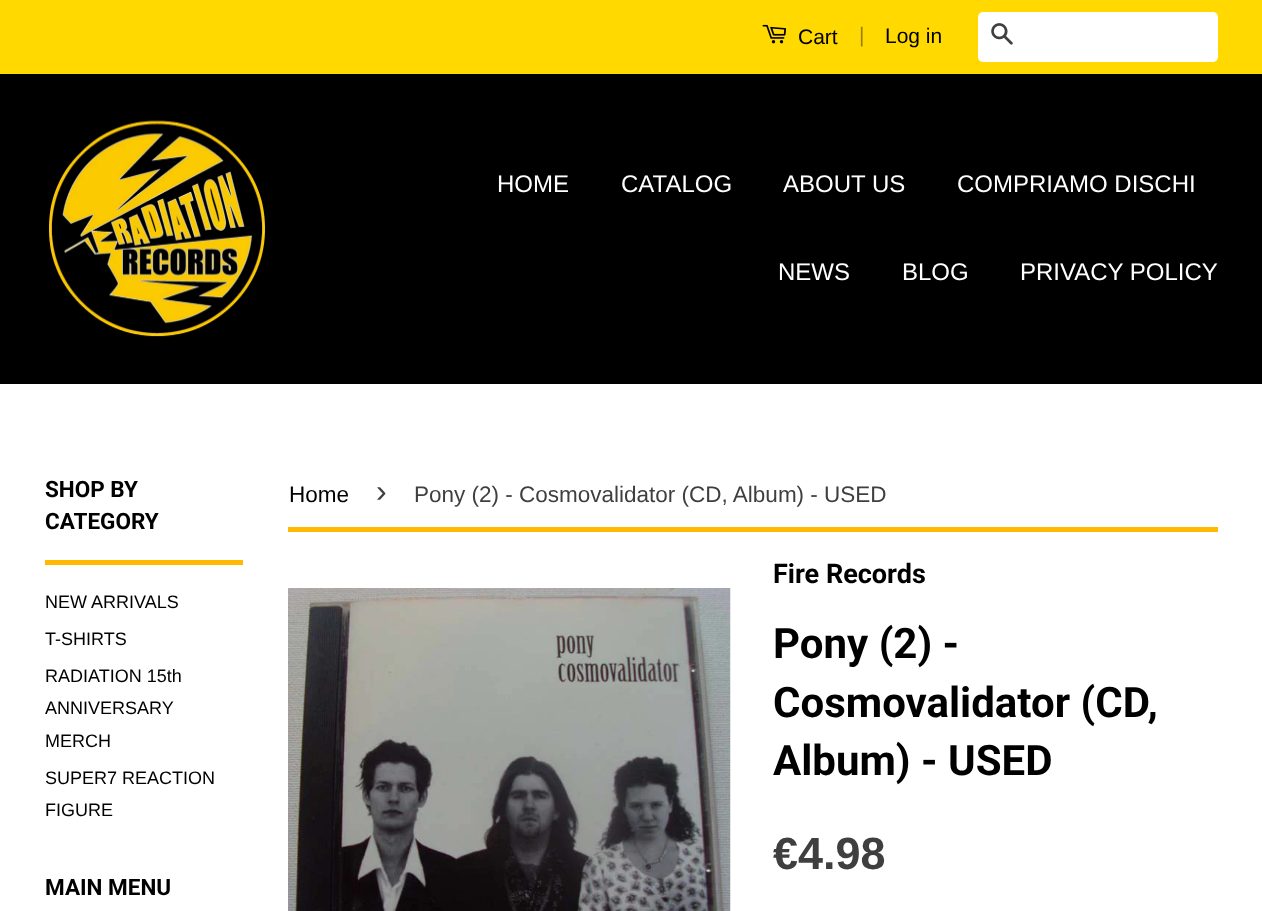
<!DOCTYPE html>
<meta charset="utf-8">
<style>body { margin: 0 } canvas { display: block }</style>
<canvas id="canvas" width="1262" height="911"></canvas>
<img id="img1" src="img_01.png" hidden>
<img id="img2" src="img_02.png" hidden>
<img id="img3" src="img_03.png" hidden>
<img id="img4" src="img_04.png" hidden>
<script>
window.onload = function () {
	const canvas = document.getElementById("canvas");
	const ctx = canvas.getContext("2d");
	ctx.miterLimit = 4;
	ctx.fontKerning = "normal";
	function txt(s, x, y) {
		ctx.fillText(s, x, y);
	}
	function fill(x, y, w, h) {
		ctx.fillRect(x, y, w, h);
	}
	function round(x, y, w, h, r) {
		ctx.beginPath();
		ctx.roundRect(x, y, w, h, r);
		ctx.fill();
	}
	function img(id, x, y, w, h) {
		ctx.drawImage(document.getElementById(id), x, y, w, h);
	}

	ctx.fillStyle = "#FFFFFF";
	fill(0, 0, 1262, 911);
	ctx.fillStyle = "#FFD900";
	fill(0, 0, 1262, 74);
	img("img1", 762, 24, 25, 20);
	ctx.fillStyle = "#FFFFFF";
	round(978, 12, 240, 50, 5);
	img("img2", 991, 23, 22, 22);
	ctx.fillStyle = "#000000";
	fill(0, 74, 1262, 310);
	img("img3", 48, 118, 218, 219);
	ctx.fillStyle = "#FFB900";
	fill(45, 560, 198, 5);
	fill(288, 527, 930, 5);
	img("img4", 288, 588, 443, 323);
	ctx.font = "21px Liberation Sans";
	ctx.fillStyle = "#000000";
	txt("Cart", 798, 44);
	ctx.fillStyle = "#998200";
	txt("|", 859, 42);
	ctx.fillStyle = "#000000";
	txt("Log in", 885, 43);
	ctx.font = "24px Liberation Sans";
	ctx.fillStyle = "#FFFFFF";
	txt("HOME", 497, 192);
	txt("CATALOG", 621, 192);
	txt("ABOUT US", 783, 192);
	txt("COMPRIAMO DISCHI", 957, 192);
	txt("NEWS", 778, 280);
	txt("BLOG", 902, 280);
	txt("PRIVACY POLICY", 1020, 280);
	ctx.font = "bold 22.5px Roboto";
	ctx.fillStyle = "#000000";
	txt("SHOP BY", 45, 497);
	txt("CATEGORY", 45, 529);
	ctx.font = "18px Liberation Sans";
	txt("NEW ARRIVALS", 45, 608);
	txt("T-SHIRTS", 45, 645);
	txt("RADIATION 15th", 45, 682);
	txt("ANNIVERSARY", 45, 714);
	txt("MERCH", 45, 747);
	txt("SUPER7 REACTION", 45, 784);
	txt("FIGURE", 45, 816);
	ctx.font = "bold 22.5px Roboto";
	txt("MAIN MENU", 45, 895);
	ctx.font = "22.5px Liberation Sans";
	txt("Home", 289, 502);
	ctx.font = "32px Liberation Sans";
	ctx.fillStyle = "#3F3F3F";
	txt("›", 376, 502);
	ctx.font = "22.5px Liberation Sans";
	txt("Pony (2) - Cosmovalidator (CD, Album) - USED", 414, 502);
	ctx.font = "bold 27px Roboto";
	ctx.fillStyle = "#000000";
	txt("Fire Records", 773, 583);
	ctx.font = "bold 42px Roboto";
	txt("Pony (2) -", 773, 658);
	txt("Cosmovalidator (CD,", 773, 717);
	txt("Album) - USED", 773, 775);
	ctx.font = "bold 45px Liberation Sans";
	ctx.fillStyle = "#3F3F3F";
	txt("€4.98", 773, 869);
};
</script>
